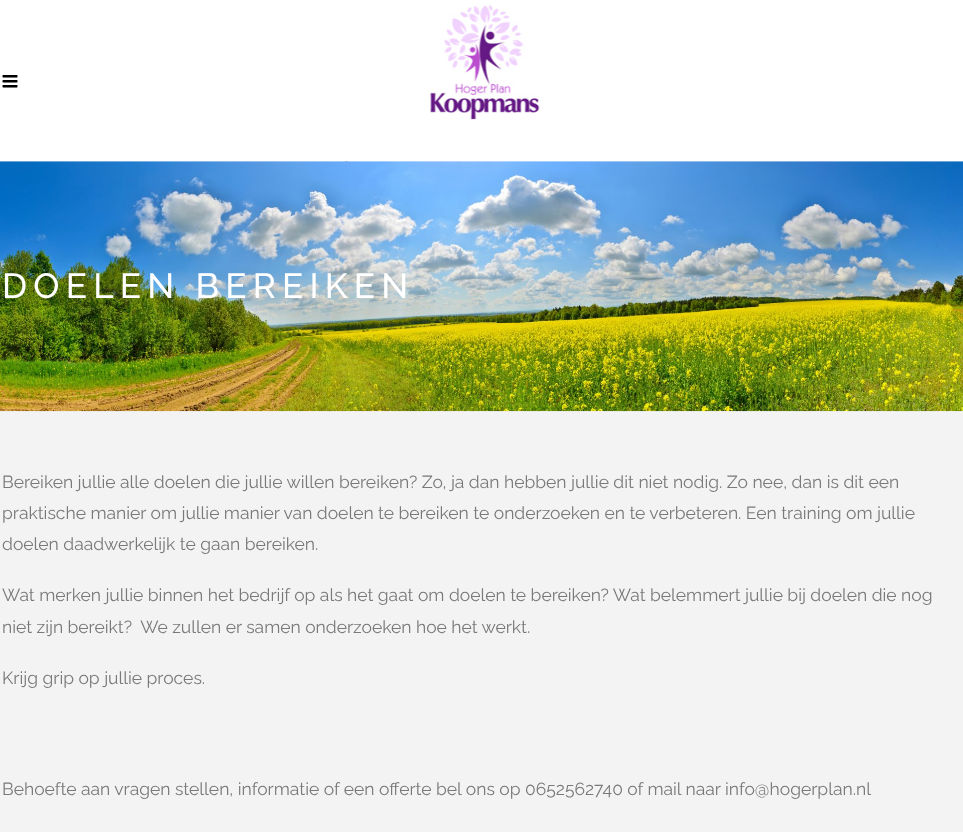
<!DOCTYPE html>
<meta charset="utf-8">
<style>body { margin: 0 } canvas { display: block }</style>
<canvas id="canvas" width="963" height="832"></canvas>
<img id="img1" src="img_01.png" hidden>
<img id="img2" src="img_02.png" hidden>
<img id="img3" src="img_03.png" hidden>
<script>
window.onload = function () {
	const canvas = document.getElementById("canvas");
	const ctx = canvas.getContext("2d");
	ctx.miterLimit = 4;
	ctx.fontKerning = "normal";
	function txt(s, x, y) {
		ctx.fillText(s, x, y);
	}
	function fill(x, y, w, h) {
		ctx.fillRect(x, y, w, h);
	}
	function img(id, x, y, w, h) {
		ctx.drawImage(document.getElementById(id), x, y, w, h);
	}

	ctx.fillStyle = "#F3F3F3";
	fill(0, 0, 963, 832);
	ctx.fillStyle = "#FFFFFF";
	fill(0, 0, 963, 161);
	img("img1", 2, 75, 16, 13);
	img("img2", 429, 5, 111, 115);
	img("img3", 0, 161, 963, 251);
	ctx.letterSpacing = "6.25px";
	ctx.font = "500 35px Raleway";
	txt("DOELEN BEREIKEN", 2, 298);
	ctx.letterSpacing = "0px";
	ctx.font = "17.5px Raleway";
	ctx.fillStyle = "#797979";
	txt("Bereiken jullie alle doelen die jullie willen bereiken? Zo, ja dan hebben jullie dit niet nodig. Zo nee, dan is dit een", 2, 488);
	txt("praktische manier om jullie manier van doelen te bereiken te onderzoeken en te verbeteren. Een training om jullie", 2, 519);
	txt("doelen daadwerkelijk te gaan bereiken.", 2, 550);
	txt("Wat merken jullie binnen het bedrijf op als het gaat om doelen te bereiken? Wat belemmert jullie bij doelen die nog", 2, 601);
	txt("niet zijn bereikt?  We zullen er samen onderzoeken hoe het werkt.", 2, 633);
	txt("Krijg grip op jullie proces.", 2, 684);
	txt("Behoefte aan vragen stellen, informatie of een offerte bel ons op 0652562740 of mail naar info@hogerplan.nl", 2, 795);
};
</script>
